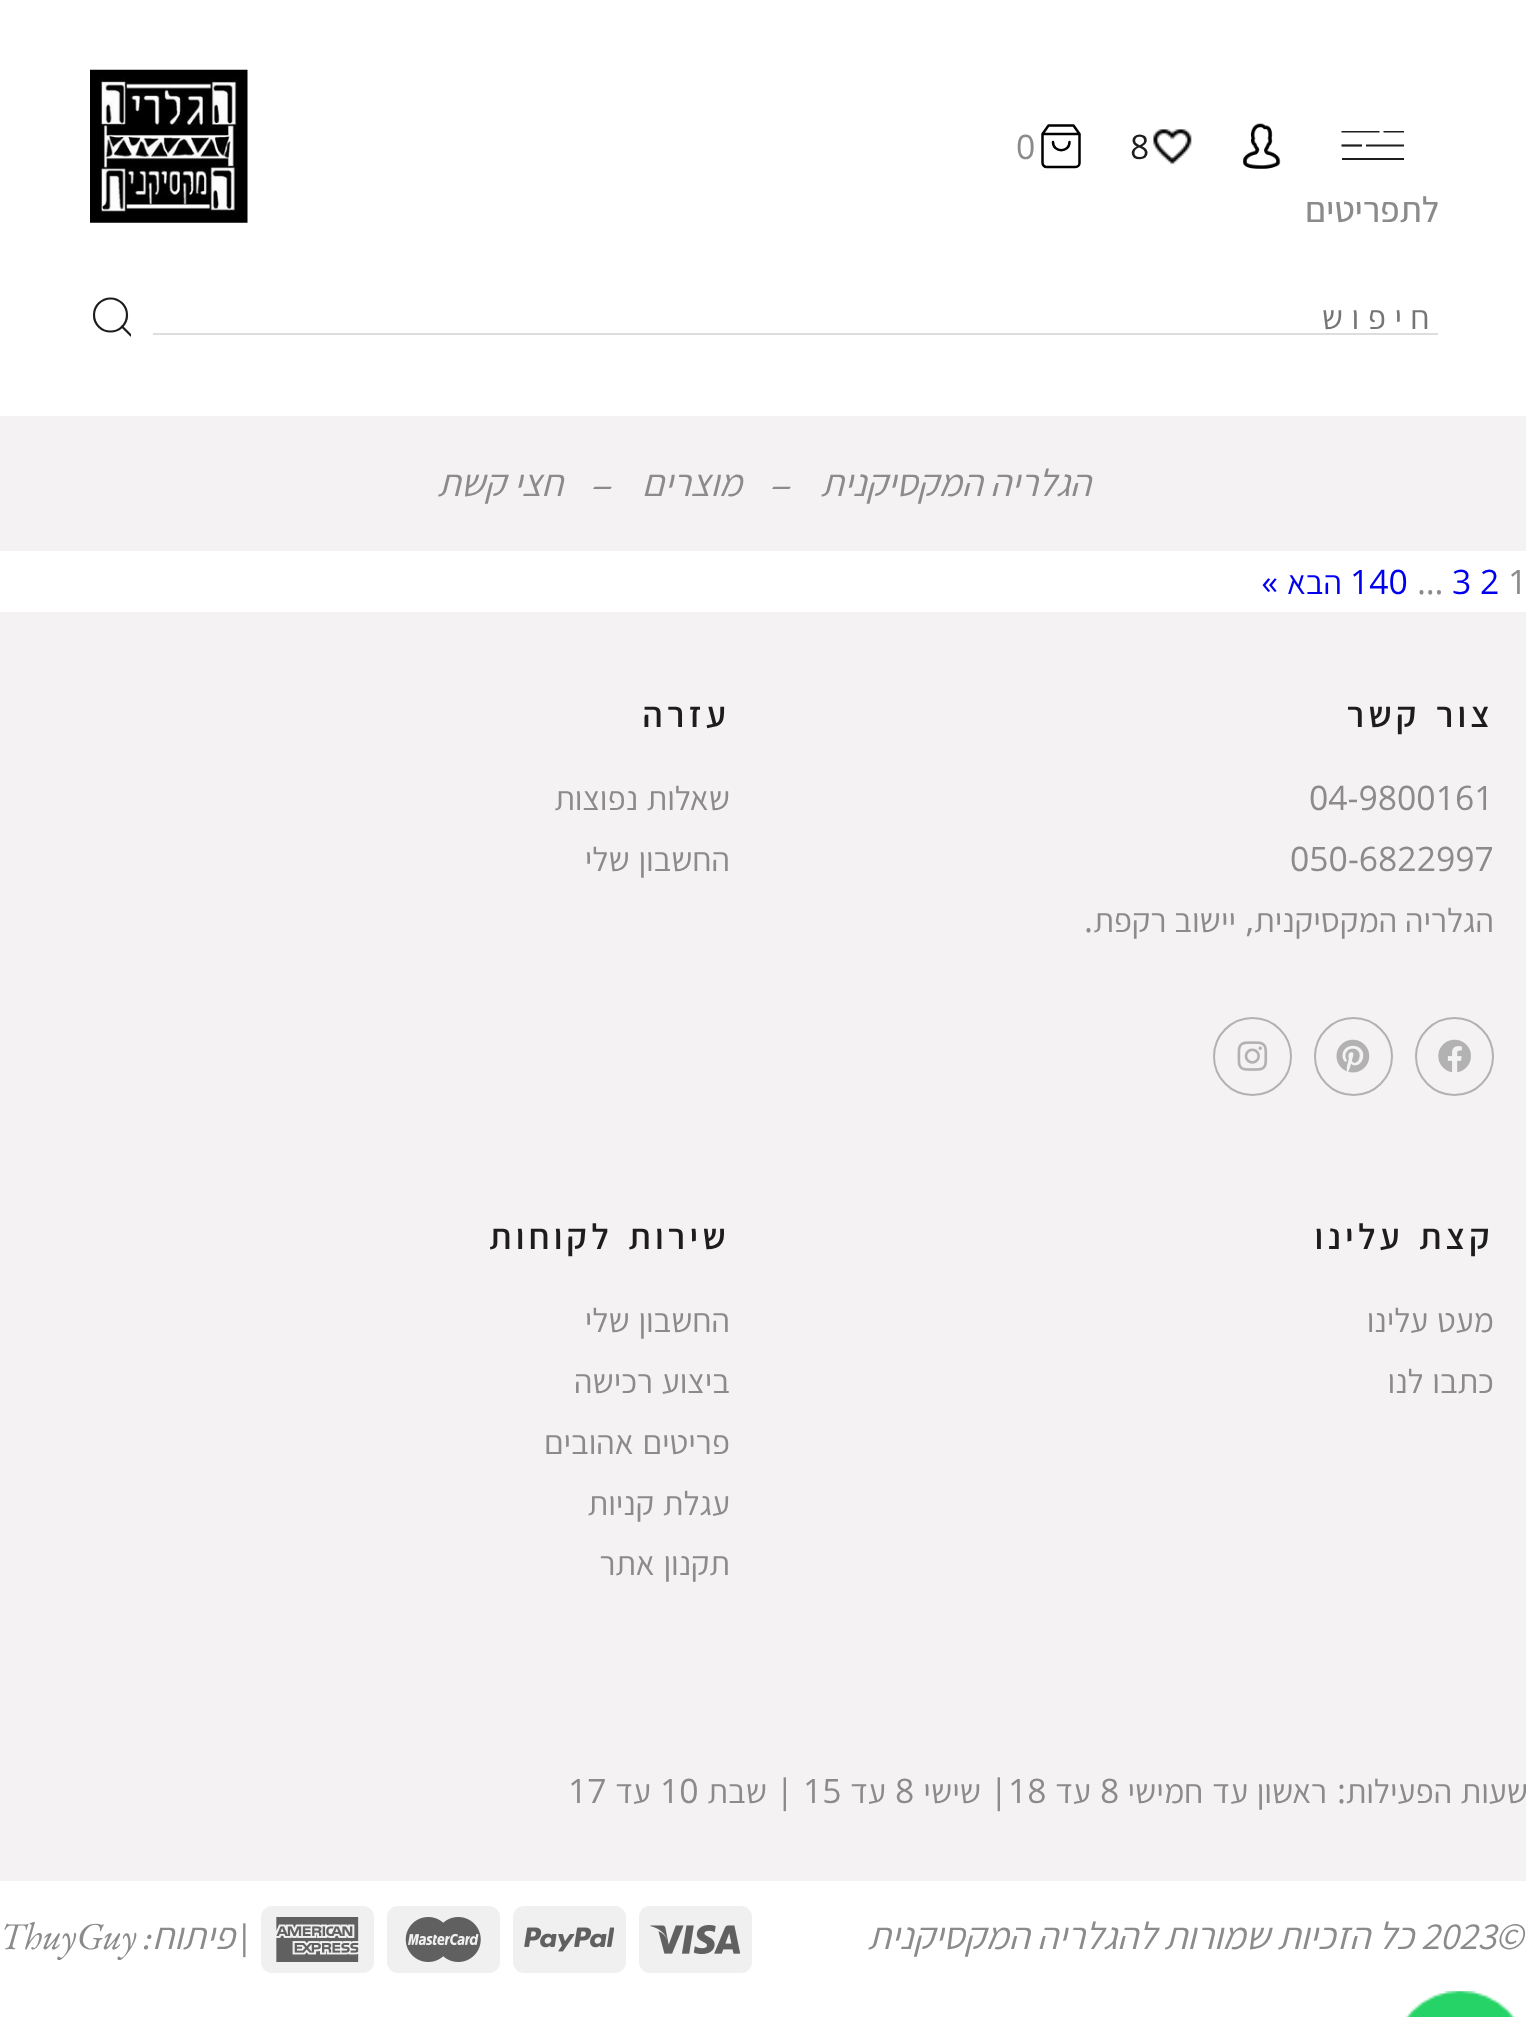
<!DOCTYPE html>
<meta charset="utf-8">
<style>body { margin: 0 } canvas { display: block }</style>
<canvas id="canvas" width="1526" height="2017"></canvas>
<img id="img1" src="img_01.png" hidden>
<img id="img2" src="img_02.png" hidden>
<img id="img3" src="img_03.png" hidden>
<img id="img4" src="img_04.png" hidden>
<img id="img5" src="img_05.png" hidden>
<img id="img6" src="img_06.png" hidden>
<img id="img7" src="img_07.png" hidden>
<img id="img8" src="img_08.png" hidden>
<img id="img9" src="img_09.png" hidden>
<img id="img10" src="img_10.png" hidden>
<img id="img11" src="img_11.png" hidden>
<script>
window.onload = function () {
	const canvas = document.getElementById("canvas");
	const ctx = canvas.getContext("2d");
	ctx.miterLimit = 4;
	ctx.fontKerning = "normal";
	function txt(s, x, y) {
		ctx.fillText(s, x, y);
	}
	function fill(x, y, w, h) {
		ctx.fillRect(x, y, w, h);
	}
	function round(x, y, w, h, r) {
		ctx.beginPath();
		ctx.roundRect(x, y, w, h, r);
		ctx.fill();
	}
	function img(id, x, y, w, h) {
		ctx.drawImage(document.getElementById(id), x, y, w, h);
	}

	ctx.fillStyle = "#FFFFFF";
	fill(0, 0, 1526, 2017);
	img("img1", 1243, 123, 38, 46);
	img("img2", 1153, 129, 39, 36);
	ctx.beginPath();
	ctx.moveTo(1048.5, 125.5);
	ctx.lineTo(1042.5, 134);
	ctx.lineTo(1042.5, 163);
	ctx.bezierCurveTo(1042.5, 165, 1044.5, 167, 1046.5, 167);
	ctx.lineTo(1075.5, 167);
	ctx.bezierCurveTo(1078, 167, 1079.5, 165, 1079.5, 163);
	ctx.lineTo(1079.5, 134);
	ctx.lineTo(1073.5, 125.5);
	ctx.closePath();
	ctx.moveTo(1042.5, 134);
	ctx.lineTo(1079.5, 134);
	ctx.moveTo(1069.5, 142);
	ctx.bezierCurveTo(1069.5, 153, 1053, 153, 1053, 142);
	ctx.strokeStyle = "#000000";
	ctx.lineWidth = 2.5;
	ctx.lineCap = "round";
	ctx.lineJoin = "round";
	ctx.stroke();
	img("img3", 90, 69, 158, 154);
	ctx.save();
	ctx.beginPath();
	ctx.rect(1341, 131, 63, 31);
	ctx.clip();
	ctx.beginPath();
	ctx.moveTo(1341.5, 131.5);
	ctx.lineTo(1379.5, 131.5);
	ctx.moveTo(1383.5, 131.5);
	ctx.lineTo(1404, 131.5);
	ctx.strokeStyle = "#1D1D1D";
	ctx.lineWidth = 2.2;
	ctx.lineCap = "butt";
	ctx.lineJoin = "miter";
	ctx.stroke();
	ctx.restore();
	ctx.beginPath();
	ctx.moveTo(1404, 145.5);
	ctx.lineTo(1366, 145.5);
	ctx.strokeStyle = "#1D1D1D";
	ctx.lineWidth = 2.2;
	ctx.lineCap = "butt";
	ctx.lineJoin = "miter";
	ctx.stroke();
	ctx.fillStyle = "#1D1D1D";
	fill(1342, 158, 62, 2);
	ctx.beginPath();
	ctx.moveTo(1362, 145.5);
	ctx.lineTo(1341.5, 145.5);
	ctx.stroke();
	ctx.beginPath();
	ctx.arc(110.5, 315, 16.5, 0, Math.PI * 2);
	ctx.stroke();
	ctx.save();
	ctx.beginPath();
	ctx.rect(92, 297, 39, 41);
	ctx.clip();
	ctx.beginPath();
	ctx.moveTo(131, 335.5);
	ctx.lineTo(122, 326.5);
	ctx.lineCap = "round";
	ctx.lineJoin = "round";
	ctx.stroke();
	ctx.restore();
	ctx.fillStyle = "#DDDDDD";
	fill(153, 333, 1285, 2);
	ctx.fillStyle = "#F4F2F2";
	fill(0, 416, 1526, 135);
	fill(0, 612, 1526, 1269);
	ctx.beginPath();
	ctx.arc(1454.5, 1056.5, 38.5, 0, Math.PI * 2);
	ctx.strokeStyle = "#B2B2B2";
	ctx.lineWidth = 2;
	ctx.stroke();
	img("img4", 1438, 1039, 33, 34);
	ctx.beginPath();
	ctx.arc(1353.5, 1056.5, 38.5, 0, Math.PI * 2);
	ctx.stroke();
	img("img5", 1336, 1039, 34, 34);
	ctx.beginPath();
	ctx.arc(1252.5, 1056.5, 38.5, 0, Math.PI * 2);
	ctx.stroke();
	img("img6", 1237, 1041, 31, 30);
	ctx.fillStyle = "#F0F0F0";
	round(639, 1906, 113, 67, 11);
	img("img7", 650, 1925, 90, 29);
	round(513, 1906, 113, 67, 11);
	img("img8", 524, 1927, 90, 25);
	round(387, 1906, 113, 67, 11);
	img("img9", 405, 1917, 76, 45);
	round(261, 1906, 113, 67, 11);
	img("img10", 276, 1917, 83, 45);
	img("img11", 1405, 1991, 110, 26);
	ctx.font = "33.75px Open Sans";
	ctx.fillStyle = "#1D1D1D";
	txt("8", 1130, 159);
	ctx.fillStyle = "#8B8B8B";
	txt("0", 1016, 159);
	ctx.direction = "rtl";
	ctx.font = "500 36px Assistant";
	txt("לתפריטים", 1439, 222);
	ctx.letterSpacing = "8.5px";
	ctx.font = "33.75px Assistant";
	ctx.fillStyle = "#757575";
	txt("חיפוש", 1438, 329);
	ctx.letterSpacing = "0px";
	ctx.font = "italic 38.25px Assistant";
	ctx.fillStyle = "#8B8B8B";
	txt("הגלריה המקסיקנית", 1091, 496);
	ctx.direction = "ltr";
	ctx.font = "italic 38.25px EB Garamond";
	txt("‒", 772, 496);
	ctx.direction = "rtl";
	ctx.font = "italic 38.25px Assistant";
	txt("מוצרים", 742, 496);
	ctx.direction = "ltr";
	ctx.font = "italic 38.25px EB Garamond";
	txt("‒", 593, 496);
	ctx.direction = "rtl";
	ctx.font = "italic 38.25px Assistant";
	txt("חצי קשת", 563, 496);
	ctx.direction = "ltr";
	ctx.font = "33.75px Open Sans";
	txt("1", 1508, 594);
	ctx.fillStyle = "#0000EE";
	txt("2", 1480, 594);
	txt("3", 1452, 594);
	ctx.fillStyle = "#8B8B8B";
	txt("…", 1417, 594);
	ctx.fillStyle = "#0000EE";
	txt("140", 1350, 594);
	ctx.direction = "rtl";
	ctx.font = "33.75px Assistant";
	txt("הבא", 1342, 594);
	ctx.font = "33.75px Open Sans";
	txt("»", 1278, 594);
	ctx.letterSpacing = "4.25px";
	ctx.wordSpacing = "4px";
	ctx.font = "600 36px Assistant";
	ctx.fillStyle = "#1D1D1D";
	txt("צור קשר", 1494, 727);
	ctx.letterSpacing = "0px";
	ctx.wordSpacing = "0px";
	ctx.direction = "ltr";
	ctx.font = "33.75px Open Sans";
	ctx.fillStyle = "#8B8B8B";
	txt("04-9800161", 1309, 810);
	txt("050-6822997", 1290, 871);
	ctx.wordSpacing = "1px";
	ctx.direction = "rtl";
	ctx.font = "33.75px Assistant";
	txt("הגלריה המקסיקנית", 1494, 932);
	ctx.wordSpacing = "0px";
	ctx.font = "33.75px Open Sans";
	txt(",", 1254, 932);
	ctx.wordSpacing = "1px";
	ctx.font = "33.75px Assistant";
	txt("יישוב רקפת", 1236, 932);
	ctx.wordSpacing = "0px";
	ctx.font = "33.75px Open Sans";
	txt(".", 1093, 932);
	ctx.letterSpacing = "4.25px";
	ctx.font = "600 36px Assistant";
	ctx.fillStyle = "#1D1D1D";
	txt("עזרה", 730, 727);
	ctx.letterSpacing = "0px";
	ctx.wordSpacing = "2px";
	ctx.font = "33.75px Assistant";
	ctx.fillStyle = "#8B8B8B";
	txt("שאלות נפוצות", 730, 810);
	txt("החשבון שלי", 730, 871);
	ctx.letterSpacing = "4.25px";
	ctx.wordSpacing = "4px";
	ctx.font = "600 36px Assistant";
	ctx.fillStyle = "#1D1D1D";
	txt("קצת עלינו", 1494, 1249);
	ctx.letterSpacing = "0px";
	ctx.wordSpacing = "2px";
	ctx.font = "33.75px Assistant";
	ctx.fillStyle = "#8B8B8B";
	txt("מעט עלינו", 1494, 1332);
	txt("כתבו לנו", 1494, 1393);
	ctx.letterSpacing = "4.25px";
	ctx.wordSpacing = "4px";
	ctx.font = "600 36px Assistant";
	ctx.fillStyle = "#1D1D1D";
	txt("שירות לקוחות", 730, 1249);
	ctx.letterSpacing = "0px";
	ctx.wordSpacing = "2px";
	ctx.font = "33.75px Assistant";
	ctx.fillStyle = "#8B8B8B";
	txt("החשבון שלי", 730, 1332);
	txt("ביצוע רכישה", 730, 1393);
	txt("פריטים אהובים", 730, 1454);
	txt("עגלת קניות", 730, 1515);
	txt("תקנון אתר", 730, 1575);
	txt("שעות הפעילות", 1528, 1803);
	ctx.wordSpacing = "0px";
	ctx.font = "33.75px Open Sans";
	txt(":", 1346, 1803);
	ctx.wordSpacing = "2px";
	ctx.font = "33.75px Assistant";
	txt("ראשון עד חמישי", 1327, 1803);
	ctx.wordSpacing = "0px";
	ctx.direction = "ltr";
	ctx.font = "33.75px Open Sans";
	txt("8", 1100, 1803);
	ctx.direction = "rtl";
	ctx.font = "33.75px Assistant";
	txt("עד", 1091, 1803);
	ctx.direction = "ltr";
	ctx.font = "33.75px Open Sans";
	txt("18", 1008, 1803);
	ctx.direction = "rtl";
	txt("|", 1008, 1803);
	ctx.font = "33.75px Assistant";
	txt("שישי", 981, 1803);
	ctx.direction = "ltr";
	ctx.font = "33.75px Open Sans";
	txt("8", 895, 1803);
	ctx.direction = "rtl";
	ctx.font = "33.75px Assistant";
	txt("עד", 886, 1803);
	ctx.direction = "ltr";
	ctx.font = "33.75px Open Sans";
	txt("15", 803, 1803);
	ctx.direction = "rtl";
	txt("|", 794, 1803);
	ctx.font = "33.75px Assistant";
	txt("שבת", 767, 1803);
	ctx.direction = "ltr";
	ctx.font = "33.75px Open Sans";
	txt("10", 660, 1803);
	ctx.direction = "rtl";
	ctx.font = "33.75px Assistant";
	txt("עד", 651, 1803);
	ctx.direction = "ltr";
	ctx.font = "33.75px Open Sans";
	txt("17", 568, 1803);
	ctx.font = "italic 38.25px Assistant";
	txt("©", 1495, 1949);
	txt("2023", 1421, 1949);
	ctx.direction = "rtl";
	txt("כל הזכיות שמורות להגלריה המקסיקנית", 1414, 1949);
	ctx.direction = "ltr";
	ctx.font = "33.75px Open Sans";
	txt("|", 235, 1949);
	ctx.direction = "rtl";
	ctx.font = "italic 38.25px Assistant";
	txt("פיתוח", 235, 1949);
	ctx.font = "italic 38.25px EB Garamond";
	txt(":", 152, 1949);
	ctx.direction = "ltr";
	txt("ThuyGuy", 0, 1949);
};
</script>
